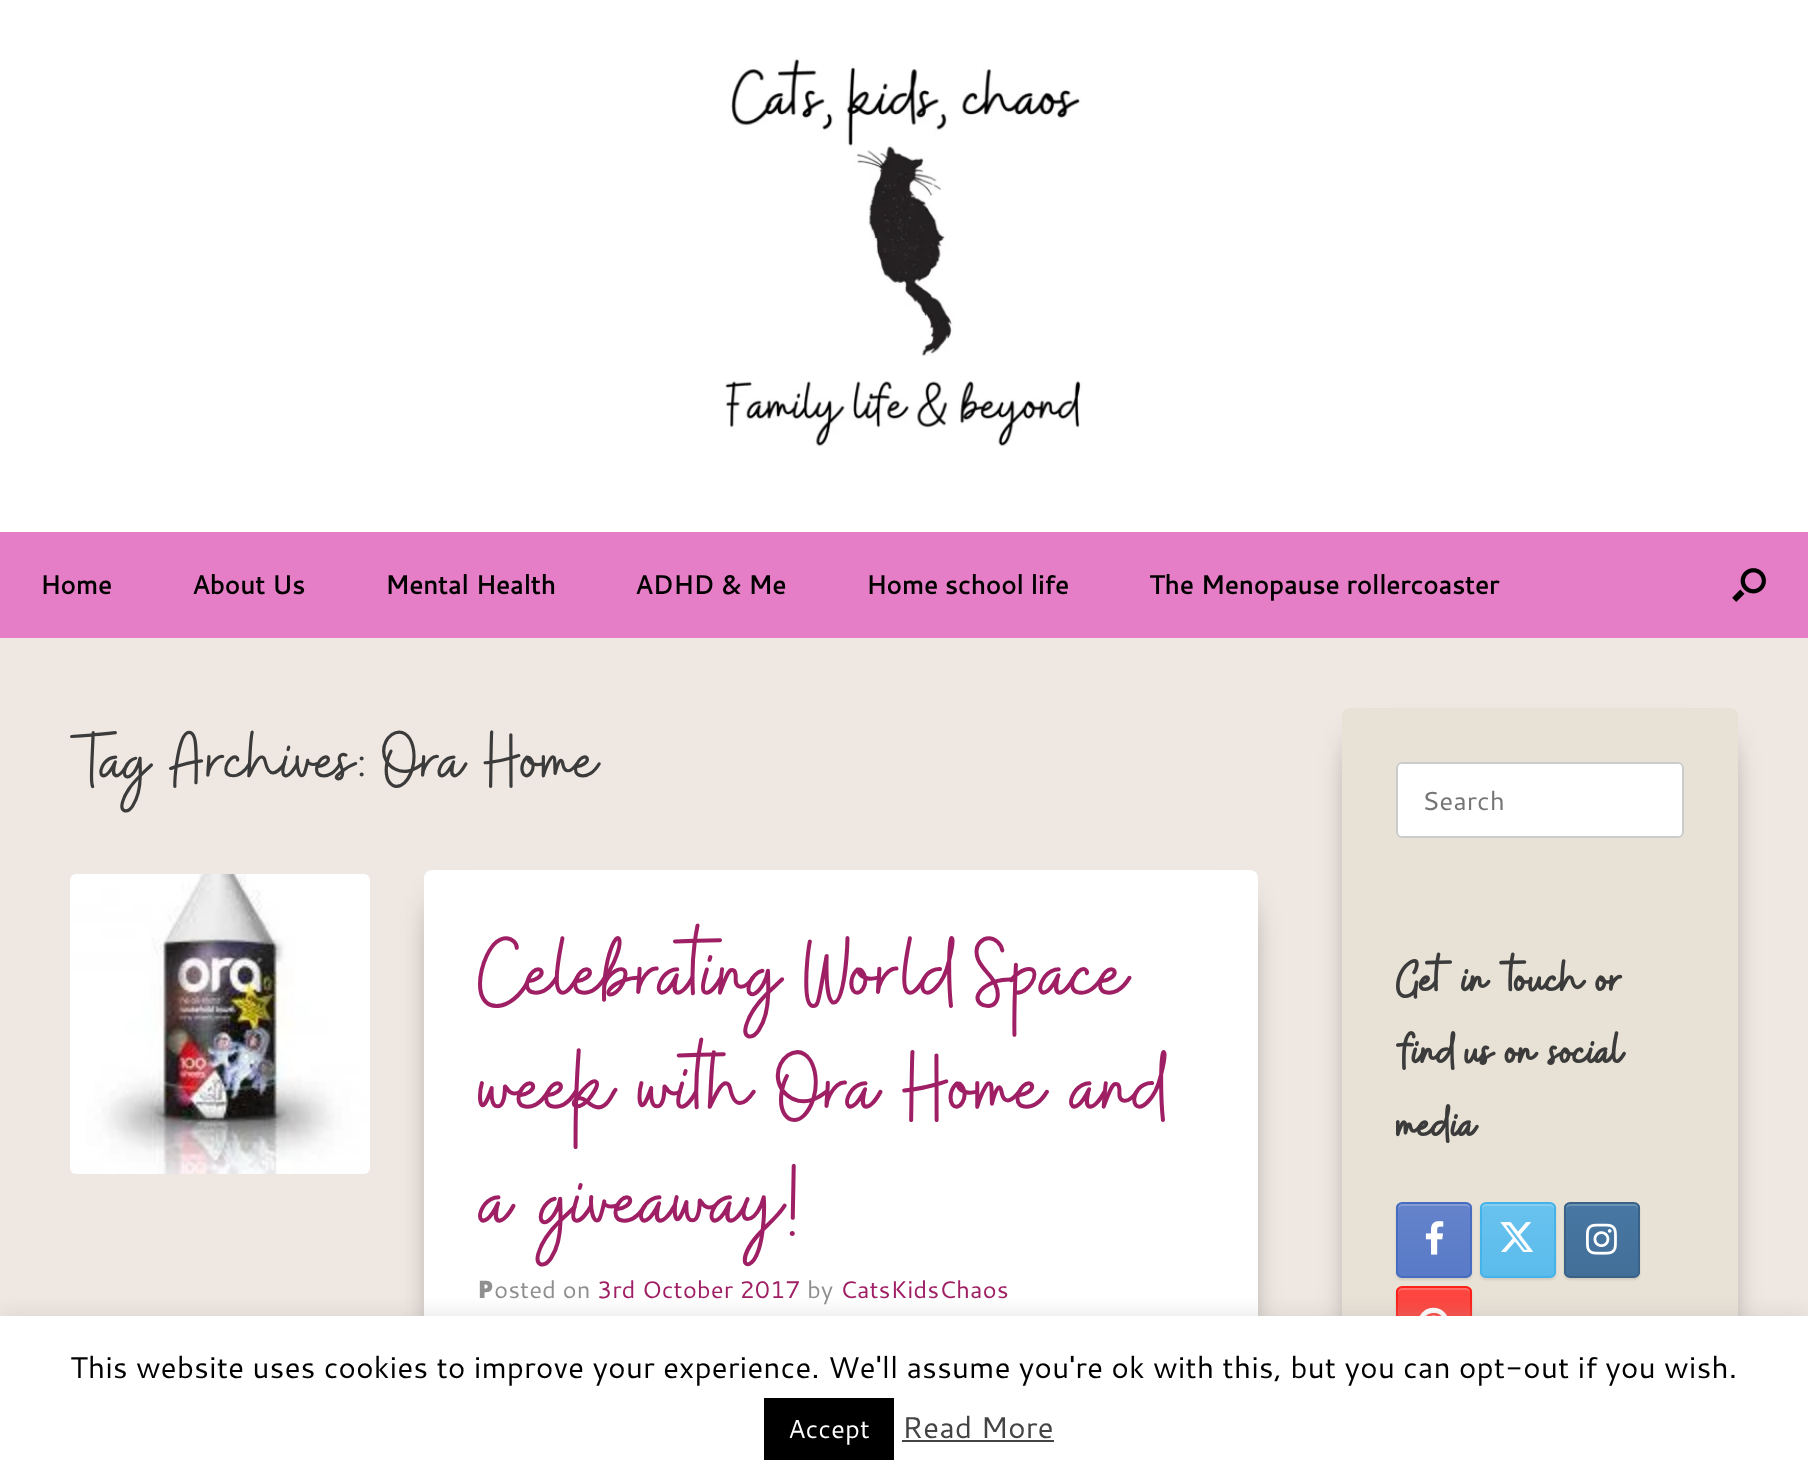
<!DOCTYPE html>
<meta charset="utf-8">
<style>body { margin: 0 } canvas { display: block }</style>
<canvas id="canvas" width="1808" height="1484"></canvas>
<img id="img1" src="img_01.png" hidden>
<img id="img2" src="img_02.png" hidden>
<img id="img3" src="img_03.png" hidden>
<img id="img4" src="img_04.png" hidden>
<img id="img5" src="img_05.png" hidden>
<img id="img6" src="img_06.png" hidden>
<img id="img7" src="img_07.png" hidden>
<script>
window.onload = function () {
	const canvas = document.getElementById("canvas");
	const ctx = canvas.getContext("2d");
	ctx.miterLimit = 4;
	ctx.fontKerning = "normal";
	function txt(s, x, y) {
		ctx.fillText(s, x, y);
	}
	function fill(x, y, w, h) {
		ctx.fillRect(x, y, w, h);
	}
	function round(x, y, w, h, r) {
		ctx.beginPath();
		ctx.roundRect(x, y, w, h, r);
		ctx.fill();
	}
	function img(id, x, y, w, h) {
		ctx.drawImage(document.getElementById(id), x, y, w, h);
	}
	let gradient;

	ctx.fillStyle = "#FFFFFF";
	fill(0, 0, 1808, 1484);
	img("img1", 725, 58, 358, 389);
	ctx.fillStyle = "#E57EC6";
	fill(0, 532, 1808, 106);
	img("img2", 1732, 568, 34, 34);
	ctx.fillStyle = "#EFE7E1";
	fill(0, 638, 1808, 678);
	img("img3", 70, 874, 300, 300);
	ctx.fillStyle = "#222222";
	ctx.filter = "blur(18px)";
	ctx.beginPath();
	ctx.rect(444, 910, 794, 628);
	ctx.fill();
	ctx.filter = "none";
	ctx.fillStyle = "#FFFFFF";
	round(424, 870, 834, 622, 8);
	ctx.fillStyle = "#222222";
	ctx.filter = "blur(18px)";
	ctx.beginPath();
	ctx.rect(1362, 748, 356, 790);
	ctx.fill();
	ctx.filter = "none";
	ctx.fillStyle = "#E8E2D6";
	round(1342, 708, 396, 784, 8);
	ctx.fillStyle = "#FFFFFF";
	ctx.beginPath();
	ctx.roundRect(1397, 763, 286, 74, 5);
	ctx.fill();
	ctx.strokeStyle = "#CCCCCC";
	ctx.lineWidth = 2;
	ctx.stroke();
	ctx.fillStyle = "rgba(0, 0, 0, 0.1)";
	ctx.filter = "blur(1px)";
	ctx.beginPath();
	ctx.roundRect(1396, 1204, 76, 76, 6);
	ctx.fill();
	ctx.filter = "none";
	ctx.save();
	ctx.beginPath();
	ctx.roundRect(1396, 1202, 76, 76, 6);
	ctx.clip();
	gradient = ctx.createLinearGradient(1434, 1276, 1434, 1204);
	gradient.addColorStop(0, "#597AC7");
	gradient.addColorStop(1, "#6483CB");
	ctx.fillStyle = gradient;
	fill(1396, 1204, 76, 72);
	ctx.restore();
	ctx.fillStyle = "#839CD5";
	ctx.beginPath();
	ctx.moveTo(1402, 1206);
	ctx.lineTo(1466, 1206);
	ctx.bezierCurveTo(1468, 1206, 1470, 1208, 1470, 1210);
	ctx.bezierCurveTo(1470, 1201, 1463, 1204, 1455, 1204);
	ctx.lineTo(1413, 1204);
	ctx.bezierCurveTo(1405, 1204, 1398, 1201, 1398, 1210);
	ctx.bezierCurveTo(1398, 1208, 1400, 1206, 1402, 1206);
	ctx.closePath();
	ctx.fill();
	ctx.beginPath();
	ctx.roundRect(1397, 1203, 74, 74, 5);
	ctx.strokeStyle = "#466BC1";
	ctx.stroke();
	img("img4", 1425, 1221, 19, 34);
	ctx.fillStyle = "rgba(0, 0, 0, 0.1)";
	ctx.filter = "blur(1px)";
	ctx.beginPath();
	ctx.roundRect(1480, 1204, 76, 76, 6);
	ctx.fill();
	ctx.filter = "none";
	ctx.save();
	ctx.beginPath();
	ctx.roundRect(1480, 1202, 76, 76, 6);
	ctx.clip();
	gradient = ctx.createLinearGradient(1518, 1276, 1518, 1204);
	gradient.addColorStop(0, "#5BBCEC");
	gradient.addColorStop(1, "#69C2EE");
	ctx.fillStyle = gradient;
	fill(1480, 1204, 76, 72);
	ctx.restore();
	ctx.fillStyle = "#87CEF1";
	ctx.beginPath();
	ctx.moveTo(1486, 1206);
	ctx.lineTo(1550, 1206);
	ctx.bezierCurveTo(1552, 1206, 1554, 1208, 1554, 1210);
	ctx.bezierCurveTo(1554, 1201, 1547, 1204, 1539, 1204);
	ctx.lineTo(1497, 1204);
	ctx.bezierCurveTo(1489, 1204, 1482, 1201, 1482, 1210);
	ctx.bezierCurveTo(1482, 1208, 1484, 1206, 1486, 1206);
	ctx.closePath();
	ctx.fill();
	ctx.beginPath();
	ctx.roundRect(1481, 1203, 74, 74, 5);
	ctx.strokeStyle = "#44B3E9";
	ctx.stroke();
	img("img5", 1500, 1222, 34, 30);
	ctx.fillStyle = "rgba(0, 0, 0, 0.1)";
	ctx.filter = "blur(1px)";
	ctx.beginPath();
	ctx.roundRect(1564, 1204, 76, 76, 6);
	ctx.fill();
	ctx.filter = "none";
	ctx.save();
	ctx.beginPath();
	ctx.roundRect(1564, 1202, 76, 76, 6);
	ctx.clip();
	gradient = ctx.createLinearGradient(1602, 1276, 1602, 1204);
	gradient.addColorStop(0, "#426F98");
	gradient.addColorStop(1, "#4777A3");
	ctx.fillStyle = gradient;
	fill(1564, 1204, 76, 72);
	ctx.restore();
	ctx.fillStyle = "#6C92B5";
	ctx.beginPath();
	ctx.moveTo(1570, 1206);
	ctx.lineTo(1634, 1206);
	ctx.bezierCurveTo(1636, 1206, 1638, 1208, 1638, 1210);
	ctx.bezierCurveTo(1638, 1201, 1631, 1204, 1623, 1204);
	ctx.lineTo(1581, 1204);
	ctx.bezierCurveTo(1573, 1204, 1566, 1201, 1566, 1210);
	ctx.bezierCurveTo(1566, 1208, 1568, 1206, 1570, 1206);
	ctx.closePath();
	ctx.fill();
	ctx.beginPath();
	ctx.roundRect(1565, 1203, 74, 74, 5);
	ctx.strokeStyle = "#3A6286";
	ctx.stroke();
	img("img6", 1586, 1223, 31, 32);
	ctx.fillStyle = "rgba(0, 0, 0, 0.1)";
	ctx.filter = "blur(1px)";
	ctx.beginPath();
	ctx.roundRect(1396, 1288, 76, 76, 6);
	ctx.fill();
	ctx.filter = "none";
	ctx.save();
	ctx.beginPath();
	ctx.roundRect(1396, 1286, 76, 76, 6);
	ctx.clip();
	gradient = ctx.createLinearGradient(1434, 1360, 1434, 1288);
	gradient.addColorStop(0, "#FD3832");
	gradient.addColorStop(1, "#FD4741");
	ctx.fillStyle = gradient;
	fill(1396, 1288, 76, 28);
	ctx.restore();
	ctx.fillStyle = "#FD6C67";
	ctx.beginPath();
	ctx.moveTo(1402, 1290);
	ctx.lineTo(1466, 1290);
	ctx.bezierCurveTo(1468, 1290, 1470, 1292, 1470, 1294);
	ctx.bezierCurveTo(1470, 1285, 1463, 1288, 1455, 1288);
	ctx.lineTo(1413, 1288);
	ctx.bezierCurveTo(1405, 1288, 1398, 1285, 1398, 1294);
	ctx.bezierCurveTo(1398, 1292, 1400, 1290, 1402, 1290);
	ctx.closePath();
	ctx.fill();
	ctx.beginPath();
	ctx.roundRect(1397, 1287, 74, 74, 5);
	ctx.strokeStyle = "#FD1F19";
	ctx.stroke();
	img("img7", 1419, 1307, 28, 9);
	ctx.fillStyle = "rgba(172, 171, 171, 0.3)";
	ctx.filter = "blur(10px)";
	ctx.beginPath();
	ctx.rect(0, 1314, 1808, 168);
	ctx.fill();
	ctx.filter = "none";
	ctx.fillStyle = "#FFFFFF";
	fill(0, 1316, 1808, 168);
	ctx.fillStyle = "#000000";
	fill(764, 1398, 130, 62);
	ctx.fillStyle = "#444444";
	fill(902, 1440, 152, 2);
	ctx.font = "bold 26px Cantarell";
	ctx.fillStyle = "#000000";
	txt("Home", 40, 594);
	txt("About Us", 192, 594);
	txt("Mental Health", 385, 594);
	txt("ADHD & Me", 635, 594);
	txt("Home school life", 866, 594);
	txt("The Menopause rollercoaster", 1149, 594);
	ctx.font = "80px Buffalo";
	ctx.fillStyle = "#3B3B3B";
	txt("Tag Archives: Ora Home", 70, 788);
	ctx.font = "100px Buffalo";
	ctx.fillStyle = "#9F1F64";
	txt("Celebrating World Space", 478, 1008);
	txt("week with Ora Home and", 478, 1122);
	txt("a giveaway!", 478, 1236);
	ctx.font = "900 24px Noto Sans";
	ctx.fillStyle = "#8F8F8F";
	txt("P", 478, 1298);
	ctx.font = "24px Cantarell";
	txt("osted on", 494, 1298);
	ctx.fillStyle = "#9F1F64";
	txt("3rd October 2017", 597, 1298);
	ctx.fillStyle = "#8F8F8F";
	txt("by", 807, 1298);
	ctx.fillStyle = "#9F1F64";
	txt("CatsKidsChaos", 840, 1298);
	ctx.font = "26px Cantarell";
	ctx.fillStyle = "#757575";
	txt("Search", 1422, 810);
	ctx.font = "bold 52px Buffalo";
	ctx.fillStyle = "#3B3B3B";
	txt("Get in touch or", 1396, 998);
	txt("find us on social", 1396, 1070);
	txt("media", 1396, 1143);
	ctx.font = "30px Cantarell";
	ctx.fillStyle = "#000000";
	txt("This website uses cookies to improve your experience. We'll assume you're ok with this, but you can opt-out if you wish.", 70, 1378);
	ctx.font = "26px Cantarell";
	ctx.fillStyle = "#FFFFFF";
	txt("Accept", 788, 1438);
	ctx.font = "30px Cantarell";
	ctx.fillStyle = "#444444";
	txt("Read More", 902, 1438);
};
</script>
